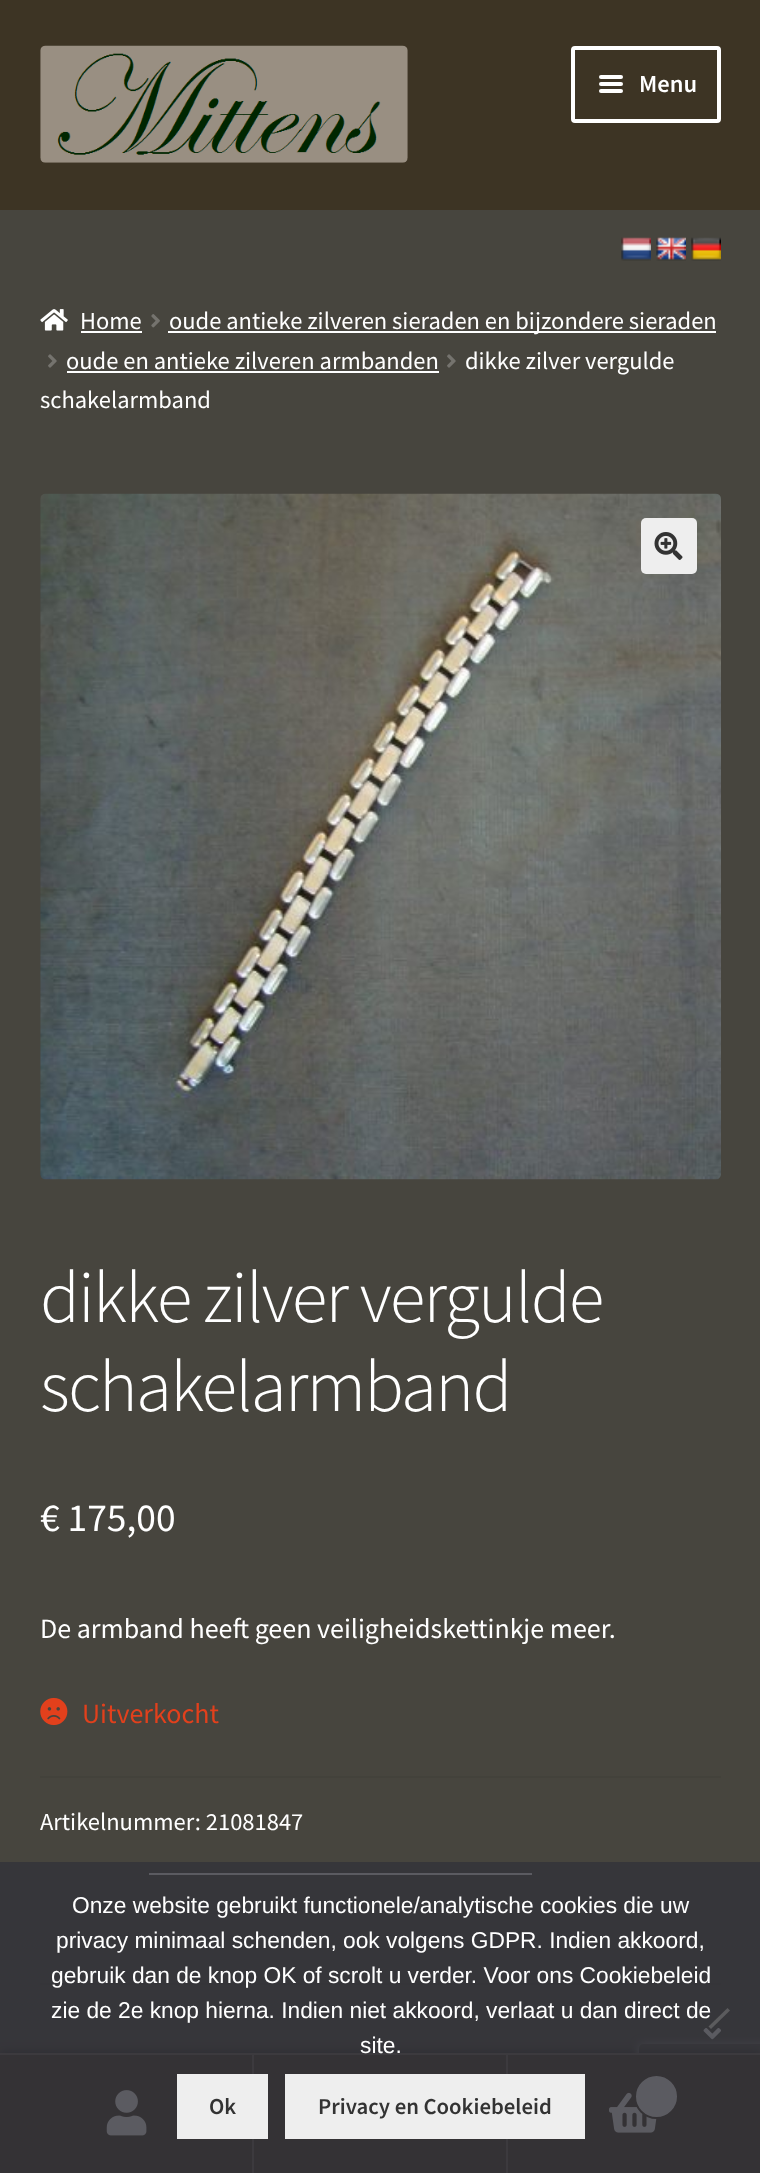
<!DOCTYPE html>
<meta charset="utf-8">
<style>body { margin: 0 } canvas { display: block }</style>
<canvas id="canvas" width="760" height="2173"></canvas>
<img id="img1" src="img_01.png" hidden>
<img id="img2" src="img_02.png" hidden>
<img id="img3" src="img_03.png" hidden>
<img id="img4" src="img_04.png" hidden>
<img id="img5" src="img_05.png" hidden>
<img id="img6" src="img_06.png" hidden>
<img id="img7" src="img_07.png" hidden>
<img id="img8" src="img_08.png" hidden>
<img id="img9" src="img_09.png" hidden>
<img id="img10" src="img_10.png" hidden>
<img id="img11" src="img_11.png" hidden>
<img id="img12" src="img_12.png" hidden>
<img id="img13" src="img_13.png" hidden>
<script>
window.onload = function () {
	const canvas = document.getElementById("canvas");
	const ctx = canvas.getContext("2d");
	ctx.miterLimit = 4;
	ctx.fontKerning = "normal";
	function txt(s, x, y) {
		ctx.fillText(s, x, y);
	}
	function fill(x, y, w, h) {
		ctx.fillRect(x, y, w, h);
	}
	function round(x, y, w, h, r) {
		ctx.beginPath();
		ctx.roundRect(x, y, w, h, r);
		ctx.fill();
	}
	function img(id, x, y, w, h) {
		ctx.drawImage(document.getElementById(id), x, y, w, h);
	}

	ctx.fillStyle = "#47453E";
	fill(0, 0, 760, 2173);
	ctx.fillStyle = "#3D3424";
	fill(0, 0, 760, 210);
	img("img1", 40, 45, 368, 118);
	ctx.beginPath();
	ctx.roundRect(573, 48, 146, 73, 2);
	ctx.strokeStyle = "#FFFFFF";
	ctx.lineWidth = 4;
	ctx.stroke();
	ctx.fillStyle = "#FFFFFF";
	round(599, 75, 24, 4, 2);
	round(599, 82, 24, 4, 2);
	round(599, 89, 24, 4, 2);
	img("img2", 621, 237, 30, 24);
	img("img3", 656, 237, 30, 24);
	img("img4", 691, 237, 30, 24);
	img("img5", 40, 309, 28, 22);
	fill(81, 331, 61, 2);
	img("img6", 151, 314, 9, 14);
	fill(168, 331, 548, 2);
	img("img7", 48, 354, 9, 14);
	fill(67, 371, 372, 2);
	img("img7", 447, 354, 9, 14);
	img("img8", 40, 493, 681, 687);
	ctx.fillStyle = "#EEEEEE";
	round(641, 518, 56, 56, 5);
	img("img9", 654, 532, 29, 28);
	img("img10", 40, 1697, 28, 29);
	ctx.fillStyle = "#43423B";
	fill(40, 1776, 681, 2);
	ctx.fillStyle = "#FFFFFF";
	fill(149, 1873, 383, 2);
	ctx.fillStyle = "#43423B";
	fill(40, 1983, 681, 2);
	img("img11", 703, 2028, 18, 12);
	ctx.fillStyle = "rgba(0, 0, 0, 0.7)";
	ctx.filter = "blur(5px)";
	ctx.beginPath();
	ctx.rect(0, 2053, 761, 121);
	ctx.fill();
	ctx.filter = "none";
	ctx.save();
	ctx.beginPath();
	ctx.moveTo(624, 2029);
	ctx.lineTo(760, 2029);
	ctx.lineTo(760, 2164);
	ctx.lineTo(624, 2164);
	ctx.closePath();
	ctx.moveTo(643, 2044);
	ctx.lineTo(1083, 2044);
	ctx.bezierCurveTo(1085, 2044, 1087, 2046, 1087, 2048);
	ctx.lineTo(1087, 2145);
	ctx.bezierCurveTo(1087, 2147, 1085, 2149, 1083, 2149);
	ctx.lineTo(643, 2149);
	ctx.bezierCurveTo(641, 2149, 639, 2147, 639, 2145);
	ctx.lineTo(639, 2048);
	ctx.bezierCurveTo(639, 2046, 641, 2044, 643, 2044);
	ctx.closePath();
	ctx.clip("evenodd");
	ctx.fillStyle = "#808080";
	ctx.filter = "blur(4.5px)";
	ctx.beginPath();
	ctx.roundRect(639, 2044, 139, 105, 4);
	ctx.fill();
	ctx.filter = "none";
	ctx.restore();
	ctx.fillStyle = "#645D50";
	fill(0, 2053, 760, 2);
	ctx.fillStyle = "#3D3424";
	fill(0, 2055, 252, 118);
	ctx.fillStyle = "#645D50";
	fill(252, 2055, 2, 118);
	img("img12", 106, 2090, 41, 46);
	ctx.fillStyle = "#3D3424";
	fill(254, 2055, 252, 118);
	ctx.fillStyle = "#645D50";
	fill(506, 2055, 2, 118);
	ctx.fillStyle = "#3D3424";
	fill(508, 2055, 252, 118);
	img("img13", 609, 2092, 48, 41);
	ctx.fillStyle = "#FFFFFF";
	ctx.beginPath();
	ctx.arc(656.5, 2096.5, 21.5, 0, Math.PI * 2);
	ctx.fill();
	ctx.strokeStyle = "#3D3424";
	ctx.lineWidth = 2;
	ctx.stroke();
	ctx.fillStyle = "rgba(50, 50, 58, 0.8)";
	fill(0, 1862, 760, 311);
	ctx.fillStyle = "#EEEEEE";
	fill(177, 2074, 91, 65);
	fill(285, 2074, 300, 65);
	ctx.font = "600 24.5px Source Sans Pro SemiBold";
	ctx.fillStyle = "#FFFFFF";
	txt("Menu", 639, 92);
	ctx.font = "24.5px Source Sans Pro";
	txt("Home", 80, 329);
	txt("oude antieke zilveren sieraden en bijzondere sieraden", 169, 329);
	txt("oude en antieke zilveren armbanden", 66, 369);
	txt("dikke zilver vergulde", 465, 369);
	txt("schakelarmband", 40, 408);
	ctx.letterSpacing = "-1.75px";
	ctx.font = "300 73.25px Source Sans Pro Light";
	txt("dikke zilver vergulde", 40, 1322);
	txt("schakelarmband", 40, 1411);
	ctx.letterSpacing = "0px";
	ctx.font = "39.5px Source Sans Pro";
	txt("€ 175,00", 40, 1531);
	ctx.font = "28px Source Sans Pro";
	txt("De armband heeft geen veiligheidskettinkje meer.", 40, 1638);
	ctx.fillStyle = "#E2401C";
	txt("Uitverkocht", 82, 1723);
	ctx.font = "24.5px Source Sans Pro";
	ctx.fillStyle = "#FFFFFF";
	txt("Artikelnummer: 21081847", 40, 1830);
	ctx.font = "22.75px Liberation Sans";
	txt("Onze website gebruikt functionele/analytische cookies die uw", 72, 1913);
	txt("privacy minimaal schenden, ook volgens GDPR. Indien akkoord,", 56, 1948);
	txt("gebruik dan de knop OK of scrolt u verder. Voor ons Cookiebeleid", 51, 1983);
	txt("zie de 2e knop hierna. Indien niet akkoord, verlaat u dan direct de", 51, 2018);
	txt("site.", 360, 2053);
	ctx.fillStyle = "#5B5B5D";
	ctx.beginPath();
	ctx.moveTo(727.5, 2008);
	ctx.lineTo(730, 2010.5);
	ctx.lineTo(711, 2029);
	ctx.lineTo(708.5, 2026.5);
	ctx.closePath();
	ctx.fill();
	ctx.font = "600 22.75px Source Sans Pro SemiBold";
	ctx.fillStyle = "#333333";
	txt("Ok", 209, 2114);
	txt("Privacy en Cookiebeleid", 318, 2114);
};
</script>
